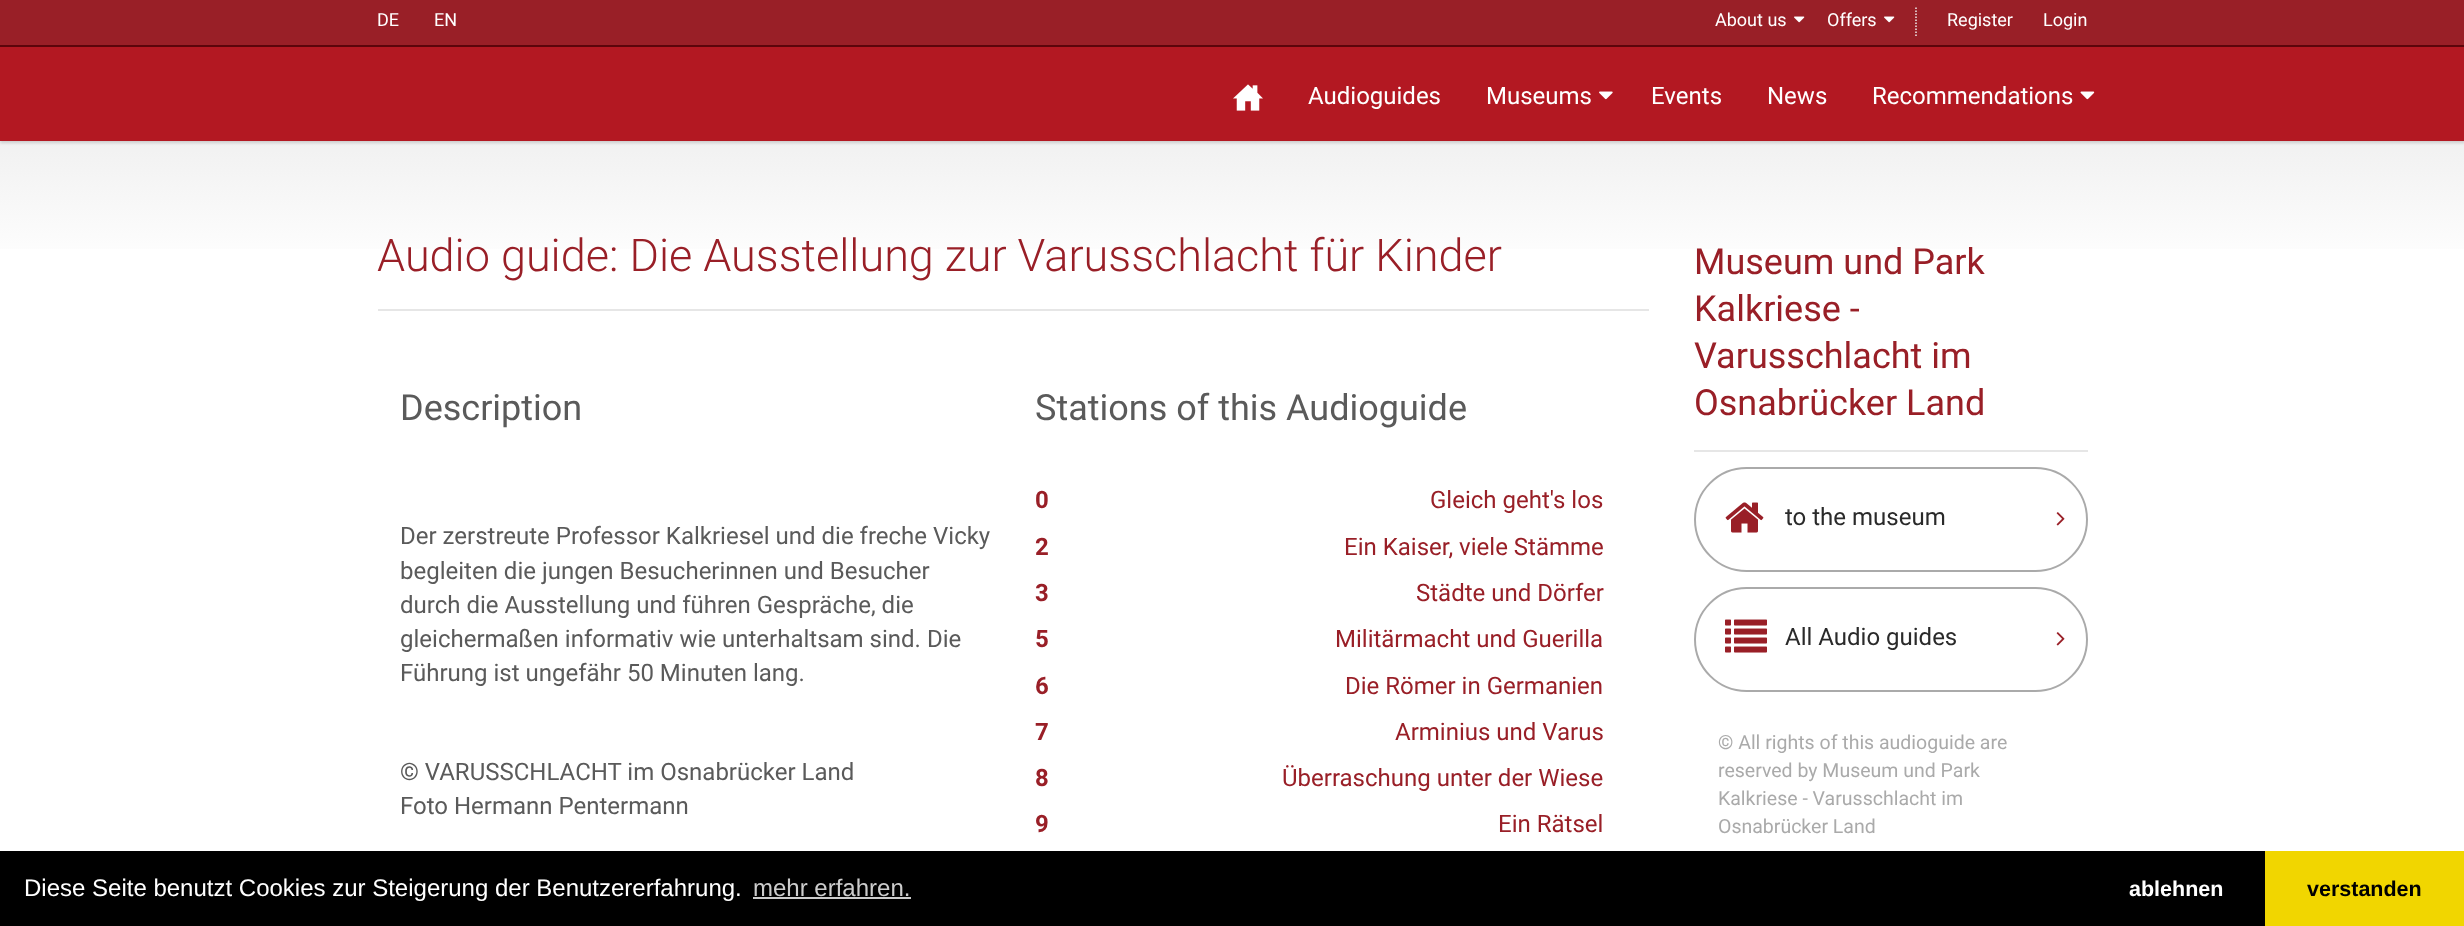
<!DOCTYPE html>
<meta charset="utf-8">
<style>body { margin: 0 } canvas { display: block }</style>
<canvas id="canvas" width="2464" height="926"></canvas>
<img id="img1" src="img_01.png" hidden>
<img id="img2" src="img_02.png" hidden>
<img id="img3" src="img_03.png" hidden>
<img id="img4" src="img_04.png" hidden>
<img id="img5" src="img_05.png" hidden>
<img id="img6" src="img_06.png" hidden>
<img id="img7" src="img_07.png" hidden>
<script>
window.onload = function () {
	const canvas = document.getElementById("canvas");
	const ctx = canvas.getContext("2d");
	ctx.miterLimit = 4;
	ctx.fontKerning = "normal";
	function txt(s, x, y) {
		ctx.fillText(s, x, y);
	}
	function fill(x, y, w, h) {
		ctx.fillRect(x, y, w, h);
	}
	function img(id, x, y, w, h) {
		ctx.drawImage(document.getElementById(id), x, y, w, h);
	}
	let gradient;

	ctx.fillStyle = "#FFFFFF";
	fill(0, 0, 2464, 926);
	gradient = ctx.createLinearGradient(1232, 141, 1232, 306);
	gradient.addColorStop(0, "#F1F1F1");
	gradient.addColorStop(0.8, "#FFFFFF");
	ctx.fillStyle = gradient;
	fill(0, 141, 2464, 108);
	ctx.fillStyle = "rgba(0, 0, 0, 0.15)";
	ctx.filter = "blur(1.5px)";
	ctx.beginPath();
	ctx.rect(0, 2, 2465, 141);
	ctx.fill();
	ctx.filter = "none";
	ctx.fillStyle = "#B31822";
	fill(0, 47, 2464, 94);
	ctx.fillStyle = "#991F27";
	fill(0, 0, 2464, 45);
	ctx.fillStyle = "#5C050B";
	fill(0, 45, 2464, 2);
	img("img1", 1794, 16, 11, 7);
	img("img1", 1884, 16, 11, 7);
	ctx.beginPath();
	ctx.moveTo(1916, 7.5);
	ctx.lineTo(1916, 37.5);
	ctx.strokeStyle = "#EEEEEE";
	ctx.lineWidth = 1.5;
	ctx.setLineDash([1.5, 1.5]);
	ctx.stroke();
	img("img2", 1233, 84, 30, 27);
	img("img3", 1599, 91, 14, 9);
	img("img4", 2080, 91, 15, 9);
	ctx.fillStyle = "#E6E6E6";
	fill(378, 309, 1271, 2);
	fill(1694, 450, 394, 2);
	ctx.beginPath();
	ctx.roundRect(1695, 468, 392, 103, 51.5);
	ctx.strokeStyle = "#AAAAAA";
	ctx.lineWidth = 2;
	ctx.setLineDash([]);
	ctx.stroke();
	img("img5", 1725, 502, 39, 31);
	img("img6", 2056, 512, 9, 14);
	ctx.beginPath();
	ctx.roundRect(1695, 588, 392, 103, 51.5);
	ctx.stroke();
	img("img7", 1725, 619, 42, 34);
	img("img6", 2056, 632, 9, 14);
	ctx.fillStyle = "#000000";
	fill(0, 851, 2265, 75);
	ctx.fillStyle = "#CCCCCC";
	fill(753, 897, 158, 2);
	ctx.fillStyle = "#F1D600";
	fill(2265, 851, 199, 75);
	ctx.font = "18px Roboto";
	ctx.fillStyle = "#FFFFFF";
	txt("DE", 377, 26);
	txt("EN", 434, 26);
	txt("About us", 1715, 26);
	txt("Offers", 1827, 26);
	txt("Register", 1947, 26);
	txt("Login", 2043, 26);
	ctx.font = "24px Roboto";
	txt("Audioguides", 1308, 104);
	txt("Museums", 1486, 104);
	txt("Events", 1651, 104);
	txt("News", 1767, 104);
	txt("Recommendations", 1872, 104);
	ctx.font = "300 45px Roboto";
	ctx.fillStyle = "#991F27";
	txt("Audio guide: Die Ausstellung zur Varusschlacht für Kinder", 377, 271);
	ctx.font = "36px Roboto";
	ctx.fillStyle = "#5A5A5A";
	txt("Description", 400, 420);
	ctx.font = "24px Roboto";
	txt("Der zerstreute Professor Kalkriesel und die freche Vicky", 400, 544);
	txt("begleiten die jungen Besucherinnen und Besucher", 400, 579);
	txt("durch die Ausstellung und führen Gespräche, die", 400, 613);
	txt("gleichermaßen informativ wie unterhaltsam sind. Die", 400, 647);
	txt("Führung ist ungefähr 50 Minuten lang.", 400, 681);
	txt("© VARUSSCHLACHT im Osnabrücker Land", 400, 780);
	txt("Foto Hermann Pentermann", 400, 814);
	ctx.font = "36px Roboto";
	txt("Stations of this Audioguide", 1035, 420);
	ctx.font = "bold 24px Roboto";
	ctx.fillStyle = "#991F27";
	txt("0", 1035, 508);
	ctx.font = "24px Roboto";
	txt("Gleich geht's los", 1430, 508);
	ctx.font = "bold 24px Roboto";
	txt("2", 1035, 555);
	ctx.font = "24px Roboto";
	txt("Ein Kaiser, viele Stämme", 1344, 555);
	ctx.font = "bold 24px Roboto";
	txt("3", 1035, 601);
	ctx.font = "24px Roboto";
	txt("Städte und Dörfer", 1416, 601);
	ctx.font = "bold 24px Roboto";
	txt("5", 1035, 647);
	ctx.font = "24px Roboto";
	txt("Militärmacht und Guerilla", 1335, 647);
	ctx.font = "bold 24px Roboto";
	txt("6", 1035, 694);
	ctx.font = "24px Roboto";
	txt("Die Römer in Germanien", 1345, 694);
	ctx.font = "bold 24px Roboto";
	txt("7", 1035, 740);
	ctx.font = "24px Roboto";
	txt("Arminius und Varus", 1395, 740);
	ctx.font = "bold 24px Roboto";
	txt("8", 1035, 786);
	ctx.font = "24px Roboto";
	txt("Überraschung unter der Wiese", 1282, 786);
	ctx.font = "bold 24px Roboto";
	txt("9", 1035, 832);
	ctx.font = "24px Roboto";
	txt("Ein Rätsel", 1498, 832);
	ctx.font = "36px Roboto";
	txt("Museum und Park", 1694, 274);
	txt("Kalkriese -", 1694, 321);
	txt("Varusschlacht im", 1694, 368);
	txt("Osnabrücker Land", 1694, 415);
	ctx.font = "24px Roboto";
	ctx.fillStyle = "#2A2A2A";
	txt("to the museum", 1785, 525);
	txt("All Audio guides", 1785, 645);
	ctx.font = "19.5px Roboto";
	ctx.fillStyle = "#AAAAAA";
	txt("© All rights of this audioguide are", 1718, 749);
	txt("reserved by Museum und Park", 1718, 777);
	txt("Kalkriese - Varusschlacht im", 1718, 805);
	txt("Osnabrücker Land", 1718, 833);
	ctx.font = "24px Liberation Sans";
	ctx.fillStyle = "#FFFFFF";
	txt("Diese Seite benutzt Cookies zur Steigerung der Benutzererfahrung.", 24, 896);
	ctx.fillStyle = "#CCCCCC";
	txt("mehr erfahren.", 753, 896);
	ctx.font = "bold 21.5px Liberation Sans";
	ctx.fillStyle = "#FFFFFF";
	txt("ablehnen", 2129, 896);
	ctx.fillStyle = "#000000";
	txt("verstanden", 2307, 896);
};
</script>
